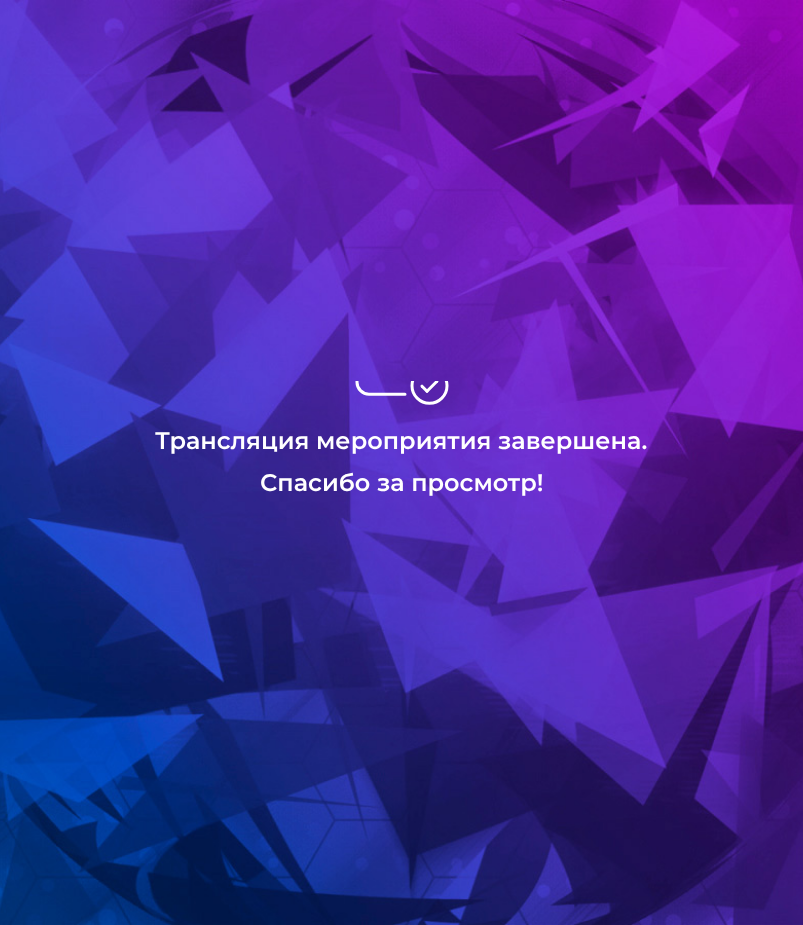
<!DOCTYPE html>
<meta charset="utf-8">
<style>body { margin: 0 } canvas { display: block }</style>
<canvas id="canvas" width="803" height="925"></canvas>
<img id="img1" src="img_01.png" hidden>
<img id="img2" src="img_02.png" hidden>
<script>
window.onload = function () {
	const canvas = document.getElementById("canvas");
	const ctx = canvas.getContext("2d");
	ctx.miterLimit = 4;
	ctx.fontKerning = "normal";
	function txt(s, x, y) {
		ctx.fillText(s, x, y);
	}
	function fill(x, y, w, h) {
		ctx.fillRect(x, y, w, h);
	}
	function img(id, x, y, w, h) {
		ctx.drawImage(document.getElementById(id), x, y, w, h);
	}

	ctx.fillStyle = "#FFFFFF";
	fill(0, 0, 803, 925);
	img("img1", 0, 0, 803, 925);
	img("img2", 355, 381, 94, 24);
	ctx.font = "600 24px Montserrat";
	txt("Трансляция мероприятия завершена.", 155, 449);
	txt("Спасибо за просмотр!", 260, 491);
};
</script>
